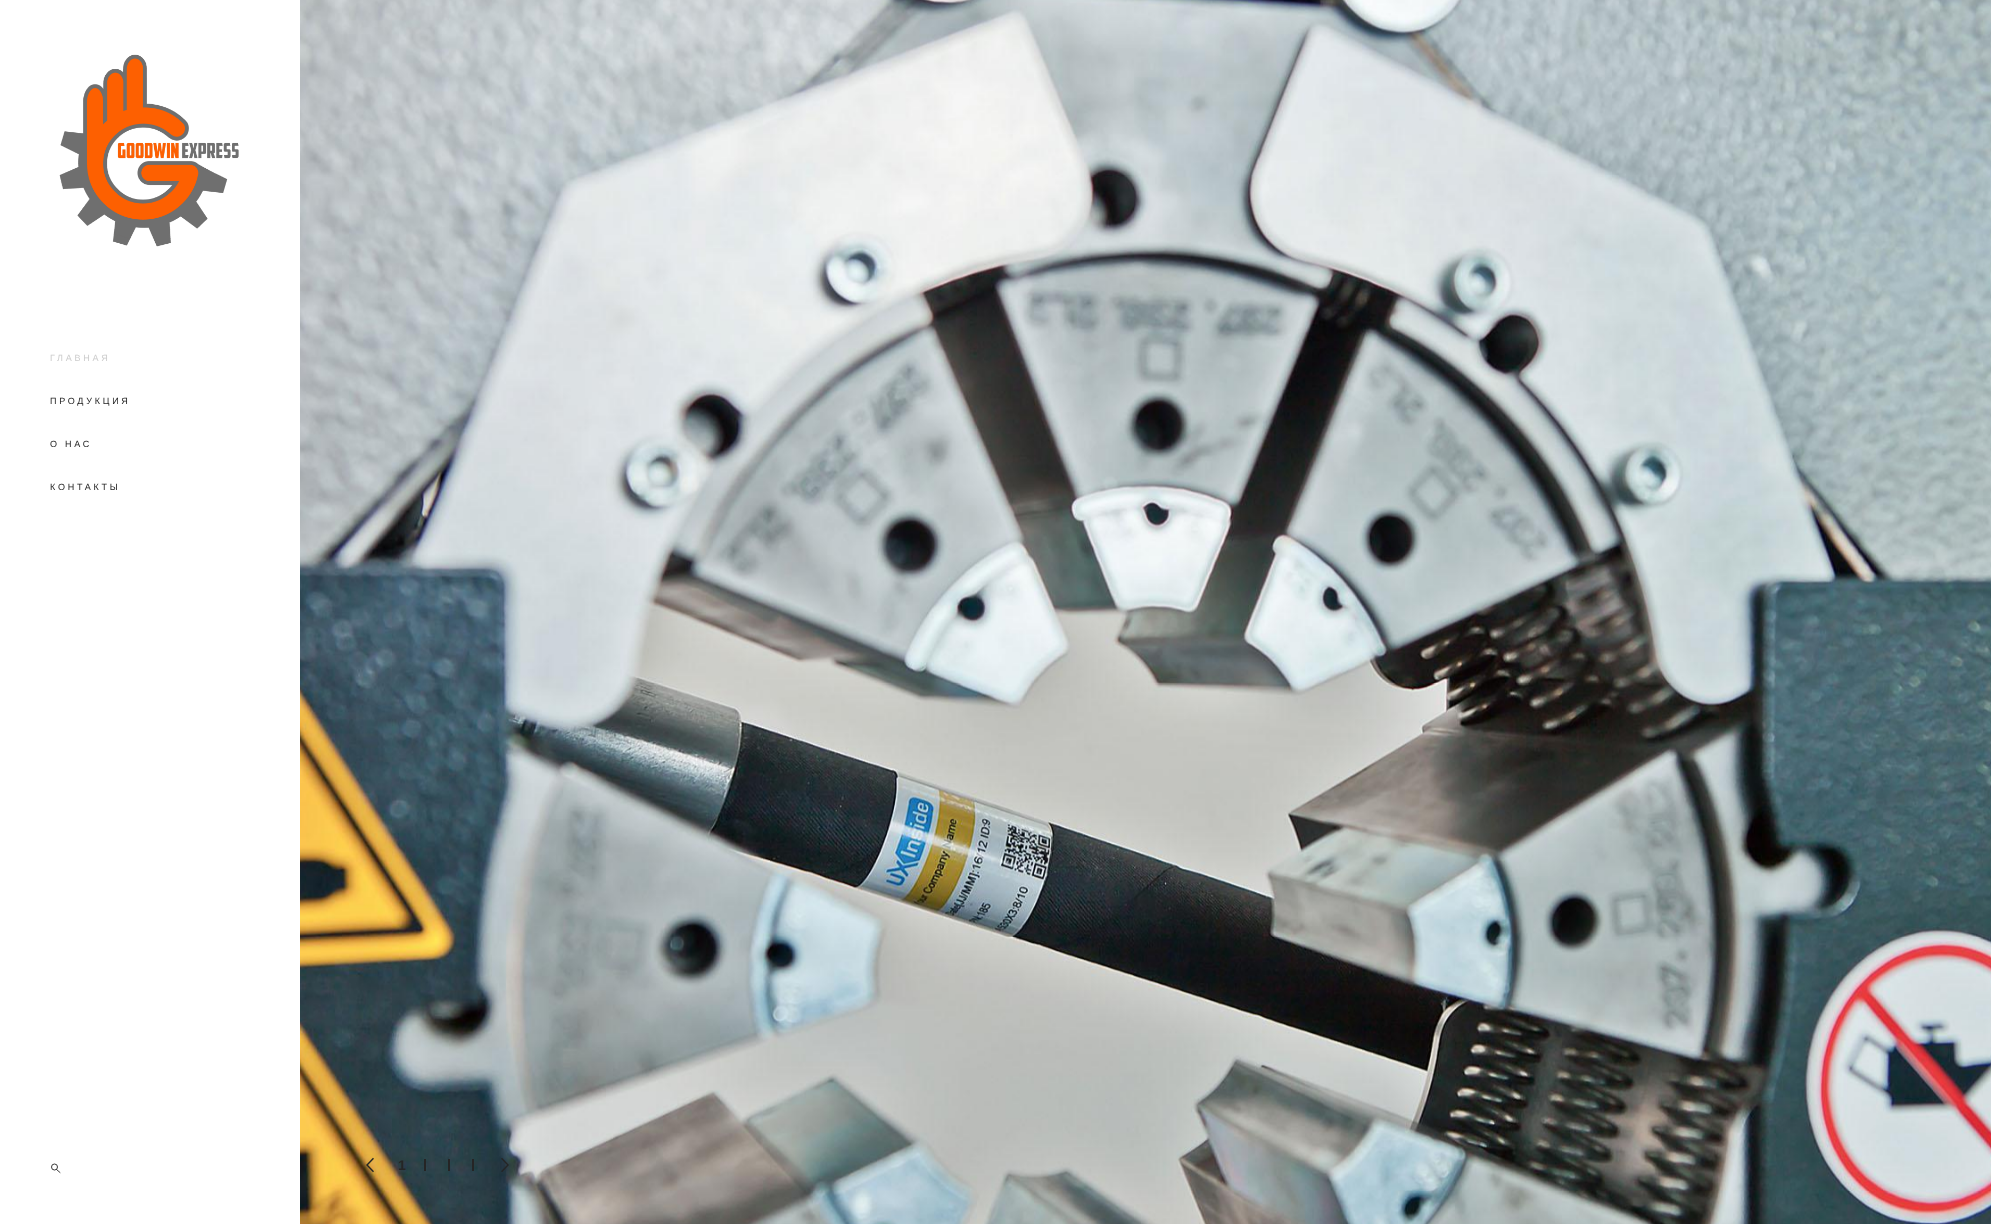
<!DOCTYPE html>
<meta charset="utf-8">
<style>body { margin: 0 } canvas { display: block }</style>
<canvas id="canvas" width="1991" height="1224"></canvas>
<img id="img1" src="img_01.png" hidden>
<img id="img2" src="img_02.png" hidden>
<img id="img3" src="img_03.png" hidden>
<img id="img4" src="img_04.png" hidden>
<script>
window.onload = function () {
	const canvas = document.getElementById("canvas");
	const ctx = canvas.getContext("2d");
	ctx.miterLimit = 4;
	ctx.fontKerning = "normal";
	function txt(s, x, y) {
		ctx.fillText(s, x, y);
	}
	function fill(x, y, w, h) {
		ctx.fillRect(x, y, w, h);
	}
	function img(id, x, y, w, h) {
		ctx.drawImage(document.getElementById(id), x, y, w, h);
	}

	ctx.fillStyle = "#FFFFFF";
	fill(0, 0, 1991, 1224);
	img("img1", 59, 54, 180, 193);
	ctx.beginPath();
	ctx.arc(54.5, 1167, 3, 0, Math.PI * 2);
	ctx.strokeStyle = "#252525";
	ctx.lineWidth = 0.9;
	ctx.stroke();
	ctx.beginPath();
	ctx.moveTo(56.5, 1169.5);
	ctx.lineTo(60, 1172.5);
	ctx.lineCap = "round";
	ctx.lineJoin = "round";
	ctx.stroke();
	img("img2", 300, 0, 1691, 1224);
	img("img3", 366, 1157, 8, 16);
	ctx.fillStyle = "#252525";
	fill(424, 1159, 2, 12);
	fill(448, 1159, 2, 12);
	fill(472, 1159, 2, 12);
	img("img4", 501, 1158, 8, 14);
	ctx.letterSpacing = "2.75px";
	ctx.font = "9px Liberation Sans";
	ctx.fillStyle = "#CCCCCC";
	txt("ГЛАВНАЯ", 50, 361);
	ctx.fillStyle = "#252525";
	txt("ПРОДУКЦИЯ", 50, 404);
	txt("О НАС", 50, 447);
	txt("КОНТАКТЫ", 50, 490);
	ctx.letterSpacing = "0px";
	ctx.font = "bold 14px Arimo";
	txt("1", 398, 1170);
};
</script>
